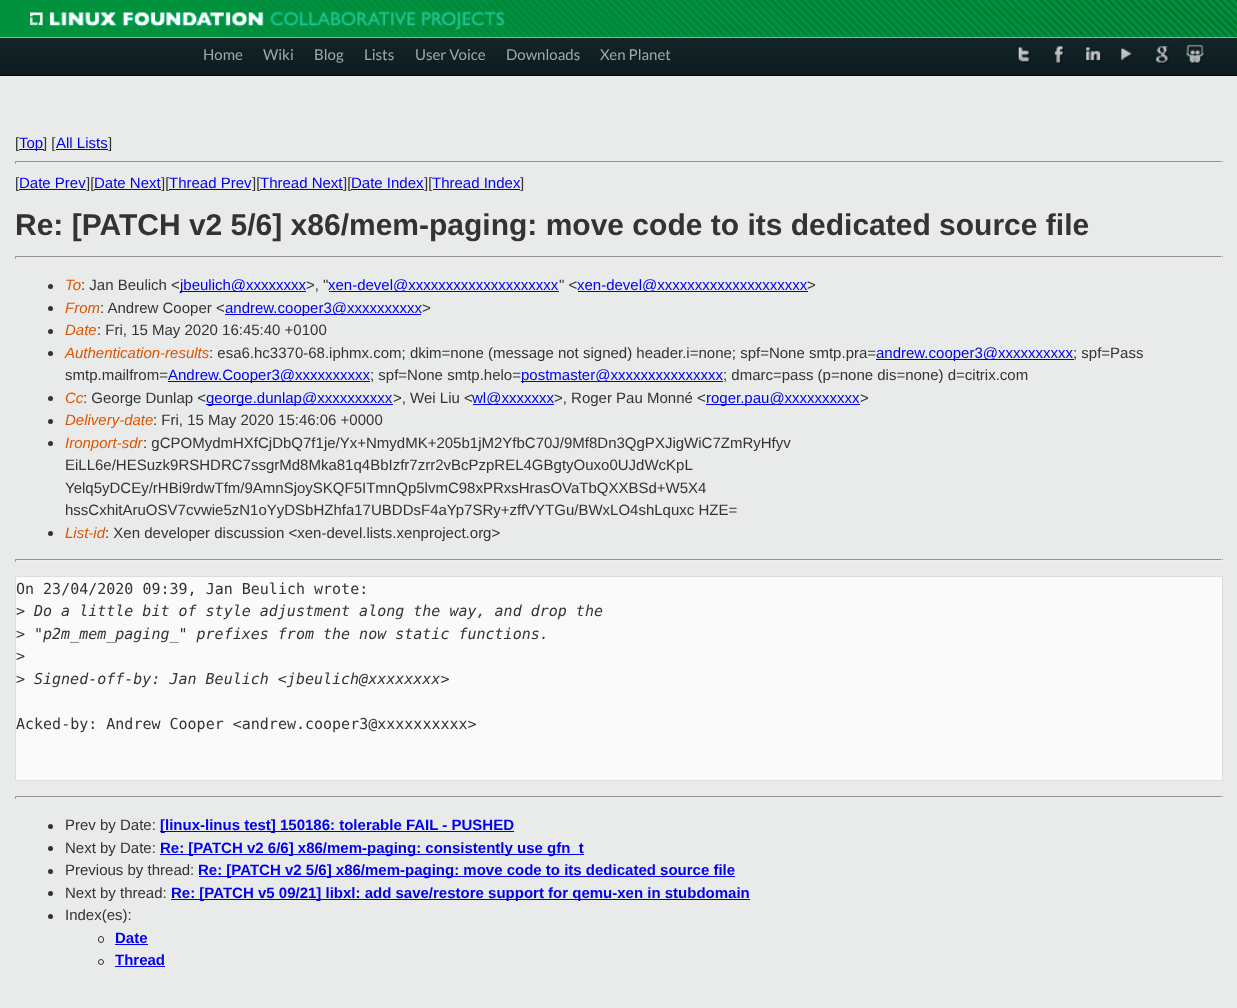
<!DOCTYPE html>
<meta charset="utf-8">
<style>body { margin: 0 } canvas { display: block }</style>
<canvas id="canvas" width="1237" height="1008"></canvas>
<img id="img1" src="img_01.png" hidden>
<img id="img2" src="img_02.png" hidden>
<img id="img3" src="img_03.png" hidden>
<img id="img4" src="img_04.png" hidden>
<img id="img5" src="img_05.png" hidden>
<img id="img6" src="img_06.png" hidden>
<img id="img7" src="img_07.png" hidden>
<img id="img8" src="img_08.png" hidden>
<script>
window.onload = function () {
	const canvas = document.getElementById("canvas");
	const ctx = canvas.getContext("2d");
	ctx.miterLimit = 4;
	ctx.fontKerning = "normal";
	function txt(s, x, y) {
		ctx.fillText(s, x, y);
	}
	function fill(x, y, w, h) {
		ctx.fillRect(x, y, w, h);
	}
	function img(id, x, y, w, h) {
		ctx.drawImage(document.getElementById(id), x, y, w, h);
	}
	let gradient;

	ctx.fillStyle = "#E9EAEA";
	fill(0, 0, 1237, 1008);
	img("img1", 0, 0, 1237, 38);
	img("img2", 30, 11, 474, 19);
	gradient = ctx.createLinearGradient(619, 37, 619, 75);
	gradient.addColorStop(0, "#122529");
	gradient.addColorStop(1, "#0D1B1E");
	ctx.fillStyle = gradient;
	fill(0, 38, 1237, 37);
	ctx.fillStyle = "#000000";
	fill(0, 75, 1237, 1);
	img("img3", 1018, 47, 12, 16);
	img("img4", 1054, 46, 10, 18);
	img("img5", 1086, 47, 16, 15);
	img("img6", 1121, 48, 12, 13);
	img("img7", 1156, 46, 13, 18);
	img("img8", 1186, 44, 19, 20);
	ctx.fillStyle = "#0000EE";
	fill(56, 149, 52, 1);
	ctx.fillStyle = "#939393";
	fill(15, 161, 1208, 1);
	ctx.fillStyle = "#EEEEEE";
	fill(1221, 161, 1, 3);
	fill(15, 163, 1208, 1);
	ctx.fillStyle = "#9F9F9F";
	fill(15, 161, 1, 3);
	ctx.fillStyle = "#0000EE";
	fill(351, 189, 73, 1);
	fill(433, 189, 87, 1);
	ctx.fillStyle = "#939393";
	fill(15, 256, 1208, 1);
	ctx.fillStyle = "#EEEEEE";
	fill(1221, 256, 1, 3);
	fill(15, 258, 1208, 1);
	ctx.fillStyle = "#9F9F9F";
	fill(15, 256, 1, 3);
	ctx.fillStyle = "#333333";
	ctx.beginPath();
	ctx.arc(50.5, 286.5, 2.5, 0, Math.PI * 2);
	ctx.fill();
	ctx.fillStyle = "#0000EE";
	fill(180, 291, 126, 1);
	fill(329, 291, 230, 1);
	fill(578, 291, 230, 1);
	ctx.fillStyle = "#333333";
	ctx.beginPath();
	ctx.arc(50.5, 308.5, 2.5, 0, Math.PI * 2);
	ctx.fill();
	ctx.fillStyle = "#0000EE";
	fill(225, 314, 196, 1);
	ctx.fillStyle = "#333333";
	ctx.beginPath();
	ctx.arc(50.5, 331.5, 2.5, 0, Math.PI * 2);
	ctx.fill();
	ctx.beginPath();
	ctx.arc(50.5, 353.5, 2.5, 0, Math.PI * 2);
	ctx.fill();
	ctx.fillStyle = "#0000EE";
	fill(876, 359, 198, 1);
	fill(168, 381, 202, 1);
	fill(521, 381, 202, 1);
	ctx.fillStyle = "#333333";
	ctx.beginPath();
	ctx.arc(50.5, 398.5, 2.5, 0, Math.PI * 2);
	ctx.fill();
	ctx.fillStyle = "#0000EE";
	fill(206, 404, 187, 1);
	fill(473, 404, 81, 1);
	fill(706, 404, 154, 1);
	ctx.fillStyle = "#333333";
	ctx.beginPath();
	ctx.arc(50.5, 421.5, 2.5, 0, Math.PI * 2);
	ctx.fill();
	ctx.beginPath();
	ctx.arc(50.5, 443.5, 2.5, 0, Math.PI * 2);
	ctx.fill();
	ctx.beginPath();
	ctx.arc(50.5, 533.5, 2.5, 0, Math.PI * 2);
	ctx.fill();
	ctx.fillStyle = "#939393";
	fill(15, 559, 1208, 1);
	ctx.fillStyle = "#EEEEEE";
	fill(1221, 559, 1, 3);
	fill(15, 560, 1208, 1);
	ctx.fillStyle = "#9F9F9F";
	fill(15, 559, 1, 3);
	ctx.fillStyle = "#FAFAFA";
	ctx.beginPath();
	ctx.rect(15.5, 576.5, 1207, 204);
	ctx.fill();
	ctx.strokeStyle = "#DDDDDD";
	ctx.stroke();
	ctx.fillStyle = "#939393";
	fill(15, 796, 1208, 1);
	ctx.fillStyle = "#EEEEEE";
	fill(1221, 796, 1, 3);
	fill(15, 798, 1208, 1);
	ctx.fillStyle = "#9F9F9F";
	fill(15, 796, 1, 3);
	ctx.fillStyle = "#333333";
	ctx.beginPath();
	ctx.arc(50.5, 826.5, 2.5, 0, Math.PI * 2);
	ctx.fill();
	ctx.fillStyle = "#0000EE";
	fill(160, 831, 354, 1);
	ctx.fillStyle = "#333333";
	ctx.beginPath();
	ctx.arc(50.5, 848.5, 2.5, 0, Math.PI * 2);
	ctx.fill();
	ctx.fillStyle = "#0000EE";
	fill(160, 854, 424, 1);
	ctx.fillStyle = "#333333";
	ctx.beginPath();
	ctx.arc(50.5, 871.5, 2.5, 0, Math.PI * 2);
	ctx.fill();
	ctx.fillStyle = "#0000EE";
	fill(199, 876, 536, 1);
	ctx.fillStyle = "#333333";
	ctx.beginPath();
	ctx.arc(50.5, 893.5, 2.5, 0, Math.PI * 2);
	ctx.fill();
	ctx.fillStyle = "#0000EE";
	fill(171, 899, 579, 1);
	ctx.fillStyle = "#333333";
	ctx.beginPath();
	ctx.arc(50.5, 916.5, 2.5, 0, Math.PI * 2);
	ctx.fill();
	ctx.beginPath();
	ctx.roundRect(98.5, 936.5, 5, 6, 2.5);
	ctx.strokeStyle = "#333333";
	ctx.stroke();
	ctx.fillStyle = "#0000EE";
	fill(115, 944, 33, 1);
	ctx.beginPath();
	ctx.arc(101, 962, 2.5, 0, Math.PI * 2);
	ctx.stroke();
	fill(115, 966, 50, 1);
	ctx.font = "15px Lato";
	ctx.fillStyle = "#A1A9AB";
	txt("Home", 203, 60);
	txt("Wiki", 263, 60);
	txt("Blog", 314, 60);
	txt("Lists", 364, 60);
	txt("User Voice", 415, 60);
	txt("Downloads", 506, 60);
	txt("Xen Planet", 600, 60);
	ctx.font = "15px Liberation Sans";
	ctx.fillStyle = "#333333";
	txt("[", 15, 148);
	ctx.fillStyle = "#0000EE";
	fill(19, 149, 25, 1);
	txt("Top", 19, 148);
	ctx.fillStyle = "#333333";
	txt("] [", 43, 148);
	ctx.fillStyle = "#0000EE";
	txt("All Lists", 56, 148);
	ctx.fillStyle = "#333333";
	txt("]", 108, 148);
	txt("[", 15, 188);
	ctx.fillStyle = "#0000EE";
	txt("Date Prev", 19, 188);
	fill(19, 189, 67, 1);
	ctx.fillStyle = "#333333";
	txt("][", 86, 188);
	ctx.fillStyle = "#0000EE";
	txt("Date Next", 94, 188);
	fill(94, 189, 67, 1);
	ctx.fillStyle = "#333333";
	txt("][", 161, 188);
	ctx.fillStyle = "#0000EE";
	txt("Thread Prev", 169, 188);
	fill(169, 189, 82, 1);
	ctx.fillStyle = "#333333";
	txt("][", 252, 188);
	ctx.fillStyle = "#0000EE";
	txt("Thread Next", 260, 188);
	fill(260, 189, 83, 1);
	ctx.fillStyle = "#333333";
	txt("][", 343, 188);
	ctx.fillStyle = "#0000EE";
	txt("Date Index", 351, 188);
	ctx.fillStyle = "#333333";
	txt("][", 424, 188);
	ctx.fillStyle = "#0000EE";
	txt("Thread Index", 432, 188);
	ctx.fillStyle = "#333333";
	txt("]", 520, 188);
	ctx.font = "bold 30px Liberation Sans";
	txt("Re: [PATCH v2 5/6] x86/mem-paging: move code to its dedicated source file", 15, 235);
	ctx.font = "italic 15px Liberation Sans";
	ctx.fillStyle = "#DD5500";
	txt("To", 65, 290);
	ctx.font = "15px Liberation Sans";
	ctx.fillStyle = "#333333";
	txt(": Jan Beulich <", 81, 290);
	ctx.fillStyle = "#0000EE";
	txt("jbeulich@xxxxxxxx", 180, 290);
	ctx.fillStyle = "#333333";
	txt(">, \"", 306, 290);
	ctx.fillStyle = "#0000EE";
	txt("xen-devel@xxxxxxxxxxxxxxxxxxxx", 328, 290);
	ctx.fillStyle = "#333333";
	txt("\" <", 559, 290);
	ctx.fillStyle = "#0000EE";
	txt("xen-devel@xxxxxxxxxxxxxxxxxxxx", 577, 290);
	ctx.fillStyle = "#333333";
	txt(">", 807, 290);
	ctx.font = "italic 15px Liberation Sans";
	ctx.fillStyle = "#DD5500";
	txt("From", 65, 313);
	ctx.font = "15px Liberation Sans";
	ctx.fillStyle = "#333333";
	txt(": Andrew Cooper <", 100, 313);
	ctx.fillStyle = "#0000EE";
	txt("andrew.cooper3@xxxxxxxxxx", 225, 313);
	ctx.fillStyle = "#333333";
	txt(">", 422, 313);
	ctx.font = "italic 15px Liberation Sans";
	ctx.fillStyle = "#DD5500";
	txt("Date", 65, 335);
	ctx.font = "15px Liberation Sans";
	ctx.fillStyle = "#333333";
	txt(": Fri, 15 May 2020 16:45:40 +0100", 97, 335);
	ctx.font = "italic 15px Liberation Sans";
	ctx.fillStyle = "#DD5500";
	txt("Authentication-results", 65, 358);
	ctx.font = "15px Liberation Sans";
	ctx.fillStyle = "#333333";
	txt(": esa6.hc3370-68.iphmx.com; dkim=none (message not signed) header.i=none; spf=None smtp.pra=", 209, 358);
	ctx.fillStyle = "#0000EE";
	txt("andrew.cooper3@xxxxxxxxxx", 876, 358);
	ctx.fillStyle = "#333333";
	txt("; spf=Pass", 1073, 358);
	txt("smtp.mailfrom=", 65, 380);
	ctx.fillStyle = "#0000EE";
	txt("Andrew.Cooper3@xxxxxxxxxx", 168, 380);
	ctx.fillStyle = "#333333";
	txt("; spf=None smtp.helo=", 370, 380);
	ctx.fillStyle = "#0000EE";
	txt("postmaster@xxxxxxxxxxxxxxx", 521, 380);
	ctx.fillStyle = "#333333";
	txt("; dmarc=pass (p=none dis=none) d=citrix.com", 723, 380);
	ctx.font = "italic 15px Liberation Sans";
	ctx.fillStyle = "#DD5500";
	txt("Cc", 65, 403);
	ctx.font = "15px Liberation Sans";
	ctx.fillStyle = "#333333";
	txt(": George Dunlap <", 83, 403);
	ctx.fillStyle = "#0000EE";
	txt("george.dunlap@xxxxxxxxxx", 206, 403);
	ctx.fillStyle = "#333333";
	txt(">, Wei Liu <", 393, 403);
	ctx.fillStyle = "#0000EE";
	txt("wl@xxxxxxx", 472, 403);
	ctx.fillStyle = "#333333";
	txt(">, Roger Pau Monné <", 554, 403);
	ctx.fillStyle = "#0000EE";
	txt("roger.pau@xxxxxxxxxx", 706, 403);
	ctx.fillStyle = "#333333";
	txt(">", 860, 403);
	ctx.font = "italic 15px Liberation Sans";
	ctx.fillStyle = "#DD5500";
	txt("Delivery-date", 65, 425);
	ctx.font = "15px Liberation Sans";
	ctx.fillStyle = "#333333";
	txt(": Fri, 15 May 2020 15:46:06 +0000", 153, 425);
	ctx.font = "italic 15px Liberation Sans";
	ctx.fillStyle = "#DD5500";
	txt("Ironport-sdr", 65, 448);
	ctx.font = "15px Liberation Sans";
	ctx.fillStyle = "#333333";
	txt(": gCPOMydmHXfCjDbQ7f1je/Yx+NmydMK+205b1jM2YfbC70J/9Mf8Dn3QgPXJigWiC7ZmRyHfyv", 143, 448);
	txt("EiLL6e/HESuzk9RSHDRC7ssgrMd8Mka81q4BbIzfr7zrr2vBcPzpREL4GBgtyOuxo0UJdWcKpL", 65, 470);
	txt("Yelq5yDCEy/rHBi9rdwTfm/9AmnSjoySKQF5ITmnQp5lvmC98xPRxsHrasOVaTbQXXBSd+W5X4", 65, 493);
	txt("hssCxhitAruOSV7cvwie5zN1oYyDSbHZhfa17UBDDsF4aYp7SRy+zffVYTGu/BWxLO4shLquxc HZE=", 65, 515);
	ctx.font = "italic 15px Liberation Sans";
	ctx.fillStyle = "#DD5500";
	txt("List-id", 65, 538);
	ctx.font = "15px Liberation Sans";
	ctx.fillStyle = "#333333";
	txt(": Xen developer discussion <xen-devel.lists.xenproject.org>", 105, 538);
	ctx.font = "15px DejaVu Sans Mono";
	txt("On 23/04/2020 09:39, Jan Beulich wrote:", 16, 594);
	txt(">", 16, 616);
	ctx.font = "italic 15px DejaVu Sans Mono";
	txt("Do a little bit of style adjustment along the way, and drop the", 34, 616);
	ctx.font = "15px DejaVu Sans Mono";
	txt(">", 16, 639);
	ctx.font = "italic 15px DejaVu Sans Mono";
	txt("\"p2m_mem_paging_\" prefixes from the now static functions.", 34, 639);
	ctx.font = "15px DejaVu Sans Mono";
	txt(">", 16, 661);
	txt(">", 16, 684);
	ctx.font = "italic 15px DejaVu Sans Mono";
	txt("Signed-off-by: Jan Beulich <jbeulich@xxxxxxxx>", 34, 684);
	ctx.font = "15px DejaVu Sans Mono";
	txt("Acked-by: Andrew Cooper <andrew.cooper3@xxxxxxxxxx>", 16, 729);
	ctx.font = "15px Liberation Sans";
	txt("Prev by Date:", 65, 830);
	ctx.font = "bold 15px Liberation Sans";
	ctx.fillStyle = "#0000EE";
	txt("[linux-linus test] 150186: tolerable FAIL - PUSHED", 160, 830);
	ctx.font = "15px Liberation Sans";
	ctx.fillStyle = "#333333";
	txt("Next by Date:", 65, 853);
	ctx.font = "bold 15px Liberation Sans";
	ctx.fillStyle = "#0000EE";
	txt("Re: [PATCH v2 6/6] x86/mem-paging: consistently use gfn_t", 160, 853);
	ctx.font = "15px Liberation Sans";
	ctx.fillStyle = "#333333";
	txt("Previous by thread:", 65, 875);
	ctx.font = "bold 15px Liberation Sans";
	ctx.fillStyle = "#0000EE";
	txt("Re: [PATCH v2 5/6] x86/mem-paging: move code to its dedicated source file", 198, 875);
	ctx.font = "15px Liberation Sans";
	ctx.fillStyle = "#333333";
	txt("Next by thread:", 65, 898);
	ctx.font = "bold 15px Liberation Sans";
	ctx.fillStyle = "#0000EE";
	txt("Re: [PATCH v5 09/21] libxl: add save/restore support for qemu-xen in stubdomain", 171, 898);
	ctx.font = "15px Liberation Sans";
	ctx.fillStyle = "#333333";
	txt("Index(es):", 65, 920);
	ctx.font = "bold 15px Liberation Sans";
	ctx.fillStyle = "#0000EE";
	txt("Date", 115, 943);
	txt("Thread", 115, 965);
};
</script>
